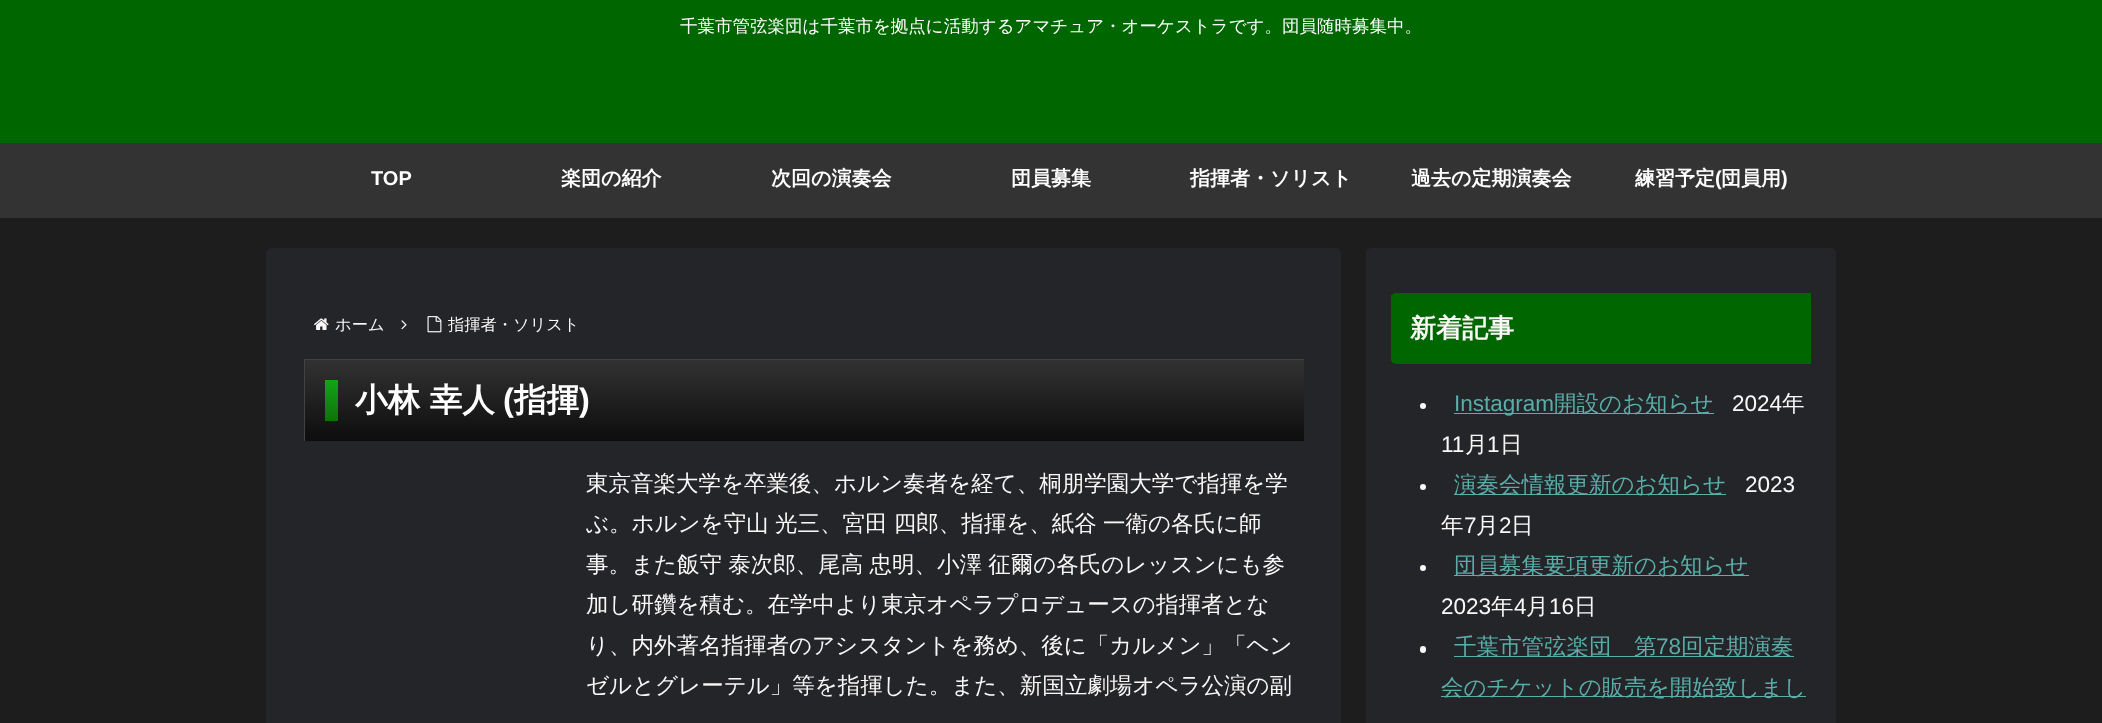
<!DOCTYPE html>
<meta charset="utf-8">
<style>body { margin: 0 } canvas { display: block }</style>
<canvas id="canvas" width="2102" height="723"></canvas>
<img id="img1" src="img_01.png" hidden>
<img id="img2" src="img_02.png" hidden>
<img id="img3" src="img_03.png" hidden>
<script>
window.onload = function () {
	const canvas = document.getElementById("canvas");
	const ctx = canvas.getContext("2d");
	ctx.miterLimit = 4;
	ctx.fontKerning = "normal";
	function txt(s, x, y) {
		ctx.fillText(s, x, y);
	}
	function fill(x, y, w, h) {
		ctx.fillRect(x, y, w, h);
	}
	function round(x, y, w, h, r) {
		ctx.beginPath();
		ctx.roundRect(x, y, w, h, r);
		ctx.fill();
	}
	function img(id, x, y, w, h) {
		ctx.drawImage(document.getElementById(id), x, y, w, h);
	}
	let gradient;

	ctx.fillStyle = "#1D1D1D";
	fill(0, 0, 2102, 723);
	ctx.fillStyle = "#006600";
	fill(0, 0, 2102, 143);
	ctx.fillStyle = "#333333";
	fill(0, 143, 2102, 75);
	ctx.fillStyle = "#242529";
	round(266, 248, 1075, 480, 5);
	img("img1", 314, 318, 15, 12);
	img("img2", 401, 320, 6, 10);
	img("img3", 427, 316, 15, 17);
	gradient = ctx.createLinearGradient(804, 360, 804, 441);
	gradient.addColorStop(0, "#323232");
	gradient.addColorStop(1, "#0D0D0D");
	ctx.fillStyle = gradient;
	fill(305, 360, 999, 81);
	ctx.fillStyle = "#424242";
	fill(304, 359, 1000, 1);
	fill(304, 359, 1, 82);
	gradient = ctx.createLinearGradient(331, 380, 331, 421);
	gradient.addColorStop(0, "#12A617");
	gradient.addColorStop(1, "#0F720A");
	ctx.fillStyle = gradient;
	fill(325, 380, 13, 41);
	ctx.fillStyle = "#242529";
	round(1366, 248, 470, 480, 5);
	ctx.fillStyle = "#006600";
	ctx.beginPath();
	ctx.roundRect(1391, 293, 420, 71, [5, 0, 0, 5]);
	ctx.fill();
	fill(1391, 295, 1, 66);
	ctx.fillStyle = "#FAF8F7";
	ctx.beginPath();
	ctx.arc(1423, 406, 3, 0, Math.PI * 2);
	ctx.fill();
	ctx.fillStyle = "#59AEA9";
	fill(1454, 413, 260, 1);
	ctx.fillStyle = "#FAF8F7";
	ctx.beginPath();
	ctx.arc(1423, 487, 3, 0, Math.PI * 2);
	ctx.fill();
	ctx.fillStyle = "#59AEA9";
	fill(1454, 494, 272, 1);
	ctx.fillStyle = "#FAF8F7";
	ctx.beginPath();
	ctx.arc(1423, 568, 3, 0, Math.PI * 2);
	ctx.fill();
	ctx.fillStyle = "#59AEA9";
	fill(1454, 575, 295, 1);
	ctx.fillStyle = "#FAF8F7";
	round(1420, 646, 6, 7, 3);
	ctx.fillStyle = "#59AEA9";
	fill(1454, 656, 340, 1);
	fill(1441, 696, 365, 1);
	ctx.font = "500 17.5px WenQuanYi Zen Hei";
	ctx.fillStyle = "#FFFFFF";
	txt("千葉市管弦楽団は千葉市を拠点に活動するアマチュア・オーケストラです。団員随時募集中。", 680, 32);
	ctx.font = "bold 20px Liberation Sans";
	txt("TOP", 371, 185);
	ctx.font = "bold 20px WenQuanYi Zen Hei";
	txt("楽団の紹介", 561, 185);
	txt("次回の演奏会", 771, 185);
	txt("団員募集", 1011, 185);
	txt("指揮者・ソリスト", 1190, 185);
	txt("過去の定期演奏会", 1411, 185);
	txt("練習予定", 1635, 185);
	ctx.font = "bold 20px Liberation Sans";
	txt("(", 1715, 185);
	ctx.font = "bold 20px WenQuanYi Zen Hei";
	txt("団員用", 1721, 185);
	ctx.font = "bold 20px Liberation Sans";
	txt(")", 1781, 185);
	ctx.font = "500 16.25px WenQuanYi Zen Hei";
	ctx.fillStyle = "#FAF8F7";
	txt("ホーム", 335, 330);
	txt("指揮者・ソリスト", 448, 330);
	ctx.font = "bold 32.5px WenQuanYi Zen Hei";
	ctx.fillStyle = "#FFFFFF";
	txt("小林 幸人", 355, 411);
	ctx.font = "bold 32.5px Liberation Sans";
	txt("(", 503, 411);
	ctx.font = "bold 32.5px WenQuanYi Zen Hei";
	txt("指揮", 514, 411);
	ctx.font = "bold 32.5px Liberation Sans";
	txt(")", 579, 411);
	ctx.font = "500 22.5px WenQuanYi Zen Hei";
	ctx.fillStyle = "#FAF8F7";
	txt("東京音楽大学を卒業後、ホルン奏者を経て、桐朋学園大学で指揮を学", 586, 491);
	ctx.wordSpacing = "-0.5px";
	txt("ぶ。ホルンを守山 光三、宮田 四郎、指揮を、紙谷 一衛の各氏に師", 586, 531);
	txt("事。また飯守 泰次郎、尾高 忠明、小澤 征爾の各氏のレッスンにも参", 586, 572);
	ctx.wordSpacing = "0px";
	txt("加し研鑽を積む。在学中より東京オペラプロデュースの指揮者とな", 586, 612);
	txt("り、内外著名指揮者のアシスタントを務め、後に「カルメン」「ヘン", 586, 653);
	txt("ゼルとグレーテル」等を指揮した。また、新国立劇場オペラ公演の副", 586, 693);
	ctx.font = "bold 26px WenQuanYi Zen Hei";
	txt("新着記事", 1410, 337);
	ctx.font = "22.5px Liberation Sans";
	ctx.fillStyle = "#59AEA9";
	txt("Instagram", 1454, 411);
	ctx.font = "500 22.5px WenQuanYi Zen Hei";
	txt("開設のお知らせ", 1554, 411);
	ctx.font = "22.5px Liberation Sans";
	ctx.fillStyle = "#FAF8F7";
	txt("2024", 1732, 411);
	ctx.font = "500 22.5px WenQuanYi Zen Hei";
	txt("年", 1782, 411);
	ctx.font = "22.5px Liberation Sans";
	txt("11", 1441, 452);
	ctx.font = "500 22.5px WenQuanYi Zen Hei";
	txt("月", 1465, 452);
	ctx.font = "22.5px Liberation Sans";
	txt("1", 1487, 452);
	ctx.font = "500 22.5px WenQuanYi Zen Hei";
	txt("日", 1500, 452);
	ctx.fillStyle = "#59AEA9";
	txt("演奏会情報更新のお知らせ", 1454, 492);
	ctx.font = "22.5px Liberation Sans";
	ctx.fillStyle = "#FAF8F7";
	txt("2023", 1745, 492);
	ctx.font = "500 22.5px WenQuanYi Zen Hei";
	txt("年", 1441, 533);
	ctx.font = "22.5px Liberation Sans";
	txt("7", 1464, 533);
	ctx.font = "500 22.5px WenQuanYi Zen Hei";
	txt("月", 1476, 533);
	ctx.font = "22.5px Liberation Sans";
	txt("2", 1499, 533);
	ctx.font = "500 22.5px WenQuanYi Zen Hei";
	txt("日", 1511, 533);
	ctx.fillStyle = "#59AEA9";
	txt("団員募集要項更新のお知らせ", 1454, 573);
	ctx.font = "22.5px Liberation Sans";
	ctx.fillStyle = "#FAF8F7";
	txt("2023", 1441, 614);
	ctx.font = "500 22.5px WenQuanYi Zen Hei";
	txt("年", 1491, 614);
	ctx.font = "22.5px Liberation Sans";
	txt("4", 1514, 614);
	ctx.font = "500 22.5px WenQuanYi Zen Hei";
	txt("月", 1526, 614);
	ctx.font = "22.5px Liberation Sans";
	txt("16", 1549, 614);
	ctx.font = "500 22.5px WenQuanYi Zen Hei";
	txt("日", 1574, 614);
	ctx.fillStyle = "#59AEA9";
	txt("千葉市管弦楽団　第", 1454, 654);
	ctx.font = "22.5px Liberation Sans";
	txt("78", 1656, 654);
	ctx.font = "500 22.5px WenQuanYi Zen Hei";
	txt("回定期演奏", 1681, 654);
	txt("会のチケットの販売を開始致しまし", 1441, 695);
};
</script>
